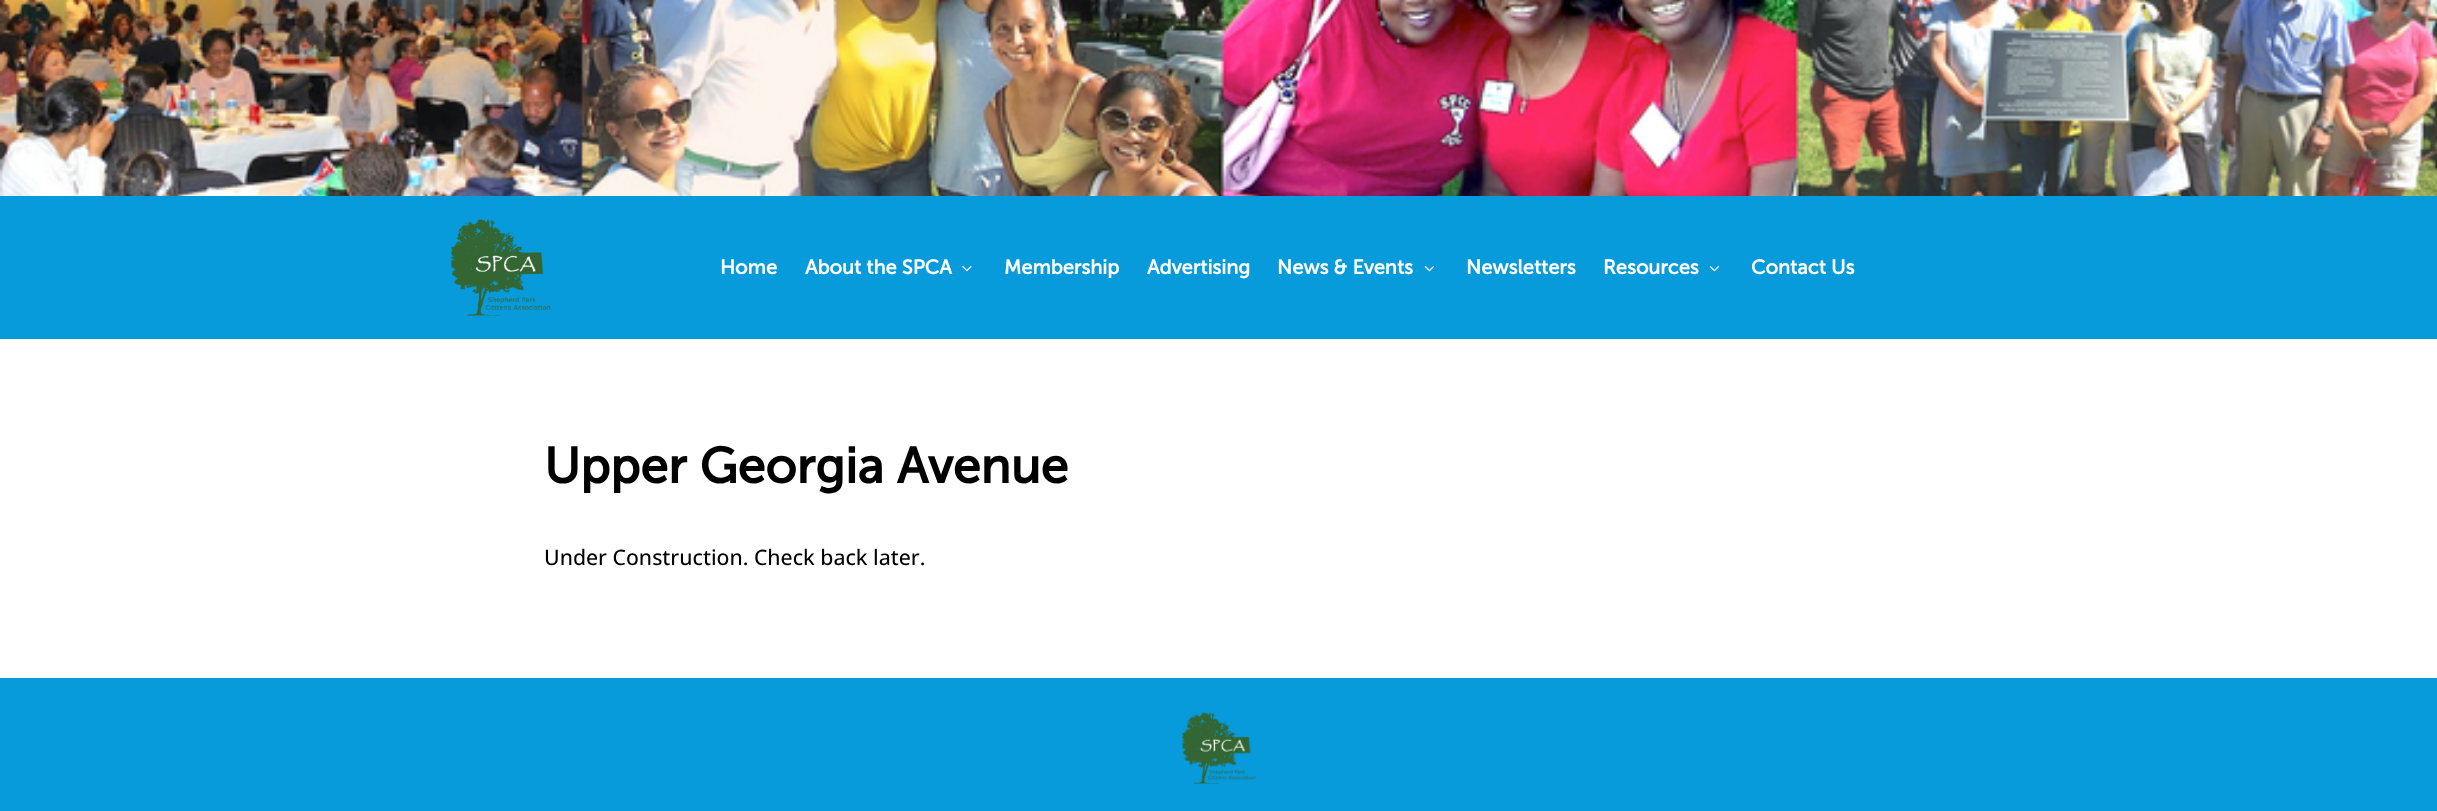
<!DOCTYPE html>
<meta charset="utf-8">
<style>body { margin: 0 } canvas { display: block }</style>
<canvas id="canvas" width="2437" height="811"></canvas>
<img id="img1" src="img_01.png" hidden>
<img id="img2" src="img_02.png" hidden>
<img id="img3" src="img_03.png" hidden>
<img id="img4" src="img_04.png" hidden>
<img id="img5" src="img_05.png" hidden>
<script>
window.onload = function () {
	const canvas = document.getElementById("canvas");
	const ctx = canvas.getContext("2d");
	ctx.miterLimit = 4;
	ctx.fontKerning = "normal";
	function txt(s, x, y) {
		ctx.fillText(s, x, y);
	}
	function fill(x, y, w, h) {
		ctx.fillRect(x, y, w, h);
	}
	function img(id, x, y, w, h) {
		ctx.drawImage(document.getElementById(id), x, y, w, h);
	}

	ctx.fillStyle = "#FFFFFF";
	fill(0, 0, 2437, 811);
	img("img1", 0, 0, 2437, 196);
	ctx.fillStyle = "#089BDC";
	fill(0, 196, 2437, 143);
	img("img2", 451, 219, 100, 97);
	img("img3", 962, 266, 10, 6);
	img("img4", 1424, 266, 10, 6);
	img("img4", 1709, 266, 10, 6);
	fill(0, 678, 2437, 133);
	img("img5", 1182, 712, 75, 73);
	ctx.font = "bold 20px Museo Sans";
	ctx.fillStyle = "#FFFFFF";
	txt("Home", 720, 274);
	txt("About the SPCA", 805, 274);
	txt("Membership", 1004, 274);
	txt("Advertising", 1147, 274);
	txt("News & Events", 1277, 274);
	txt("Newsletters", 1466, 274);
	txt("Resources", 1603, 274);
	txt("Contact Us", 1751, 274);
	ctx.font = "bold 50px Museo Sans";
	ctx.fillStyle = "#000000";
	txt("Upper Georgia Avenue", 544, 483);
	ctx.font = "500 21.25px Open Sans";
	txt("Under Construction. Check back later.", 544, 565);
};
</script>
